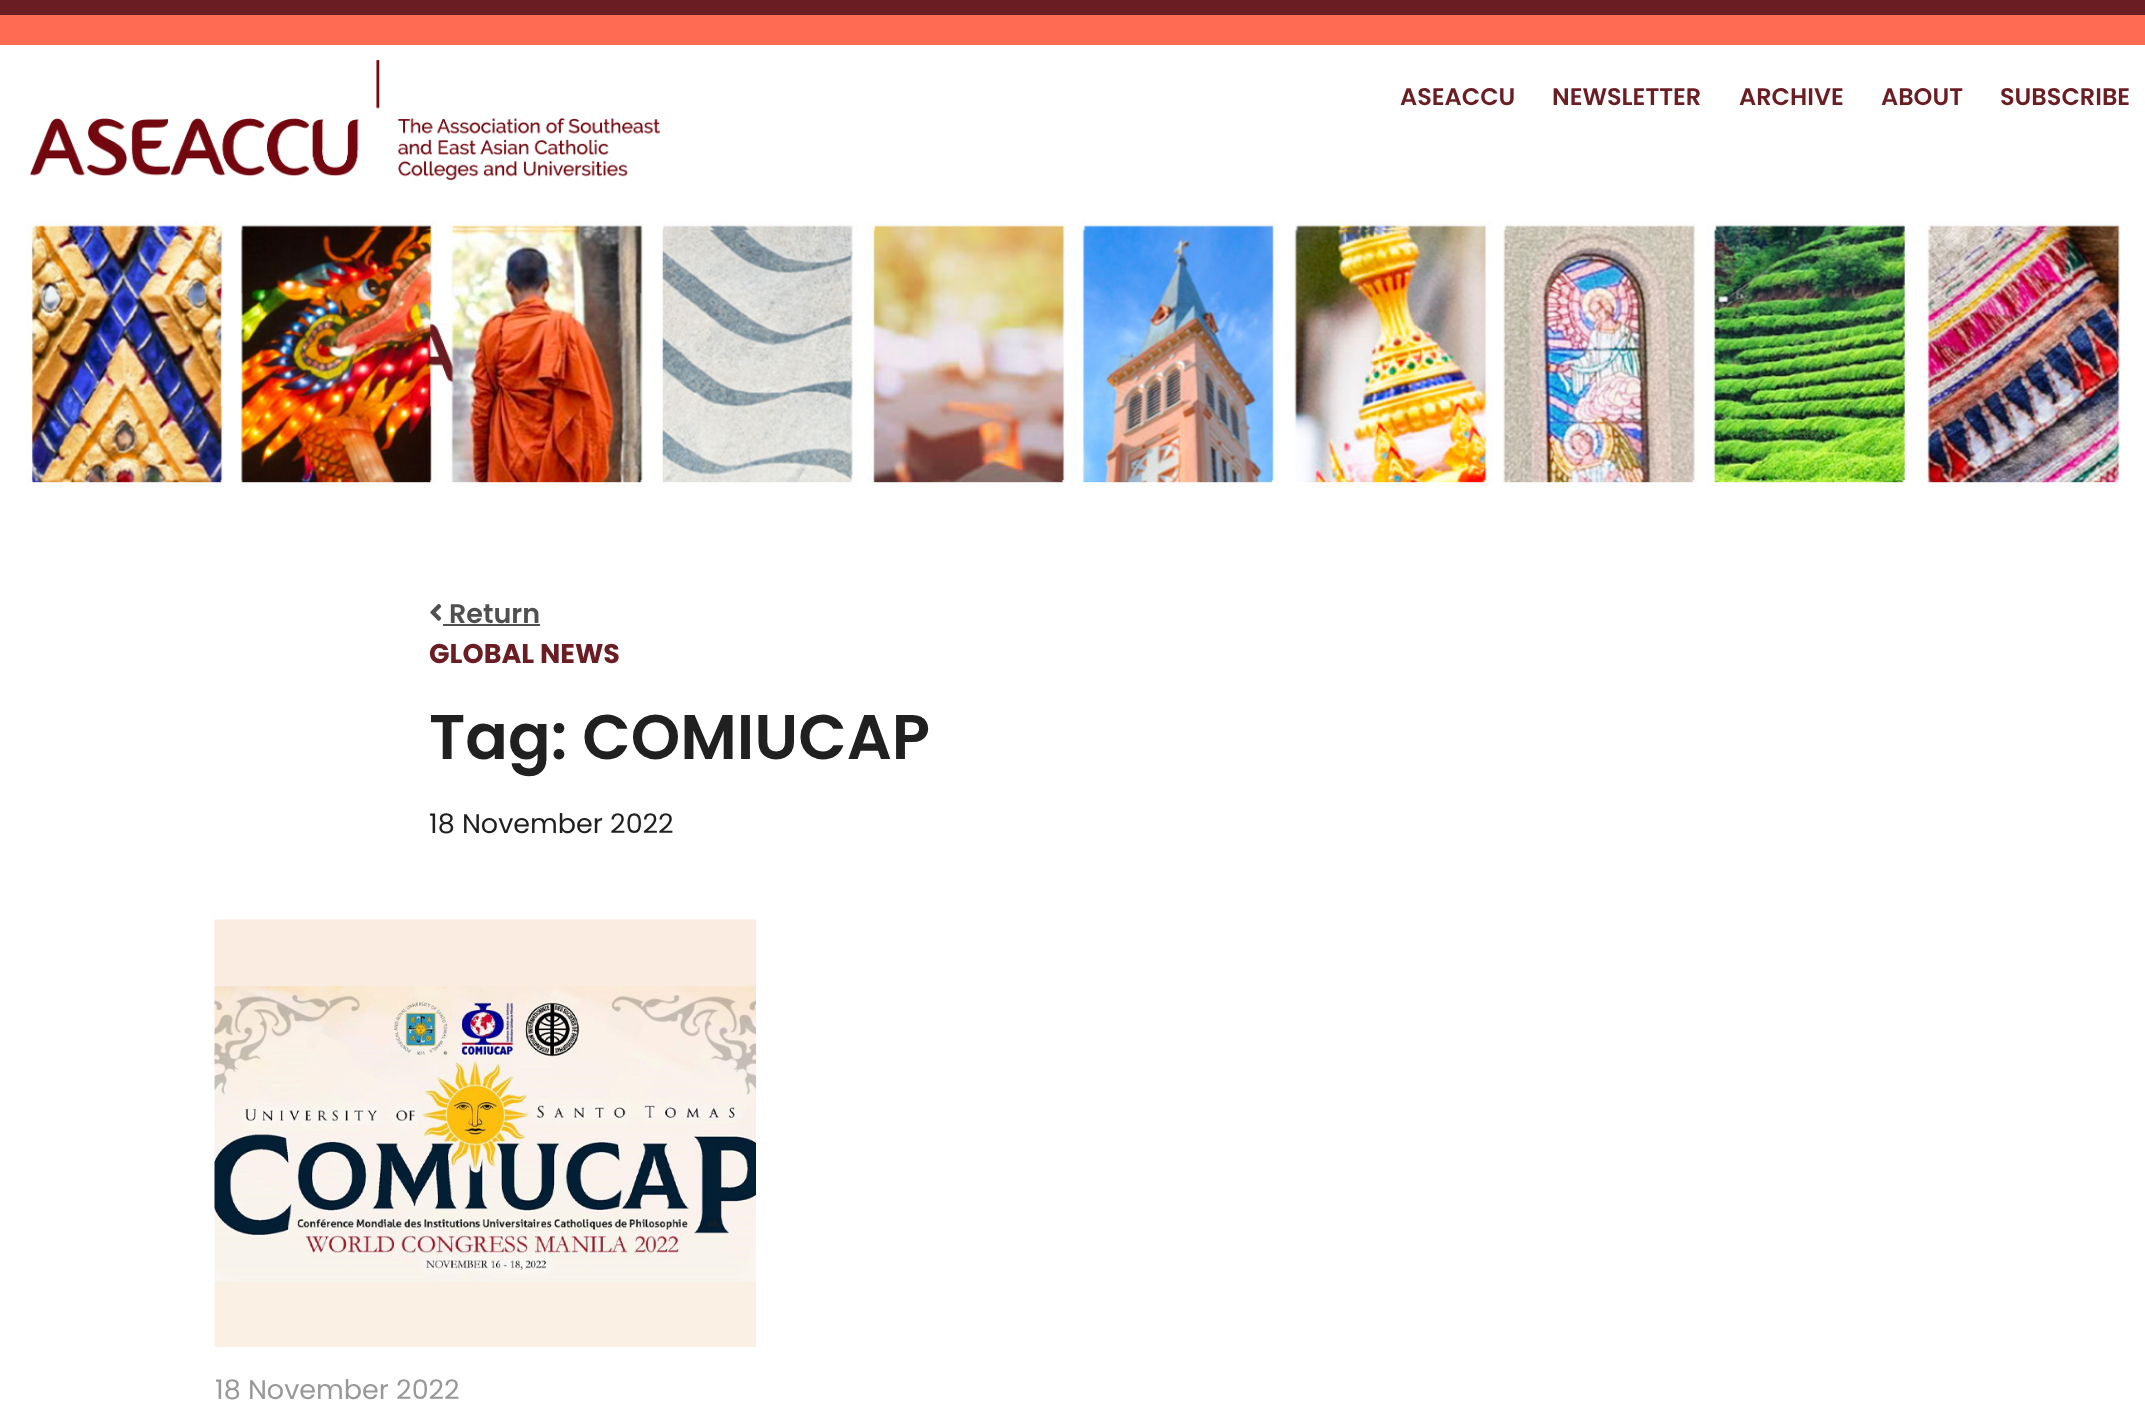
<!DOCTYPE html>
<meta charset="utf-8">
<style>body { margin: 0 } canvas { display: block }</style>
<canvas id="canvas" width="2145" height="1424"></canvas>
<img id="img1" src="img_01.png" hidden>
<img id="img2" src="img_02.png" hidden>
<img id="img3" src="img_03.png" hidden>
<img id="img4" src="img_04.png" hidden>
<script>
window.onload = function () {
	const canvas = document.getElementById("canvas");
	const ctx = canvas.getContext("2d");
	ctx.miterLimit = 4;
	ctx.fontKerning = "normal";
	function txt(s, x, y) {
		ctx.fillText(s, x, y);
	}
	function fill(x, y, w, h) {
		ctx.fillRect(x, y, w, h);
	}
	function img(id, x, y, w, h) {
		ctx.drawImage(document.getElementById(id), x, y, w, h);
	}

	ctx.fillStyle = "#FFFFFF";
	fill(0, 0, 2145, 1424);
	ctx.fillStyle = "#6A1D23";
	fill(0, 0, 2145, 15);
	ctx.fillStyle = "#FF6B53";
	fill(0, 15, 2145, 30);
	img("img1", 30, 60, 630, 120);
	img("img2", 26, 220, 2094, 267);
	img("img3", 430, 604, 12, 17);
	ctx.fillStyle = "#505050";
	fill(443, 624, 97, 2);
	img("img4", 214, 919, 542, 428);
	ctx.font = "600 24px Poppins";
	ctx.fillStyle = "#6A1D23";
	txt("ASEACCU", 1400, 105);
	txt("NEWSLETTER", 1552, 105);
	txt("ARCHIVE", 1739, 105);
	txt("ABOUT", 1881, 105);
	txt("SUBSCRIBE", 2000, 105);
	ctx.font = "600 27px Poppins";
	ctx.fillStyle = "#505050";
	txt("Return", 449, 623);
	ctx.font = "bold 27px Poppins";
	ctx.fillStyle = "#6A1D23";
	txt("GLOBAL NEWS", 429, 663);
	ctx.font = "600 63px Poppins";
	ctx.fillStyle = "#202020";
	txt("Tag: COMIUCAP", 429, 759);
	ctx.font = "27px Poppins";
	txt("18 November 2022", 429, 833);
	ctx.fillStyle = "#989898";
	txt("18 November 2022", 215, 1399);
};
</script>
